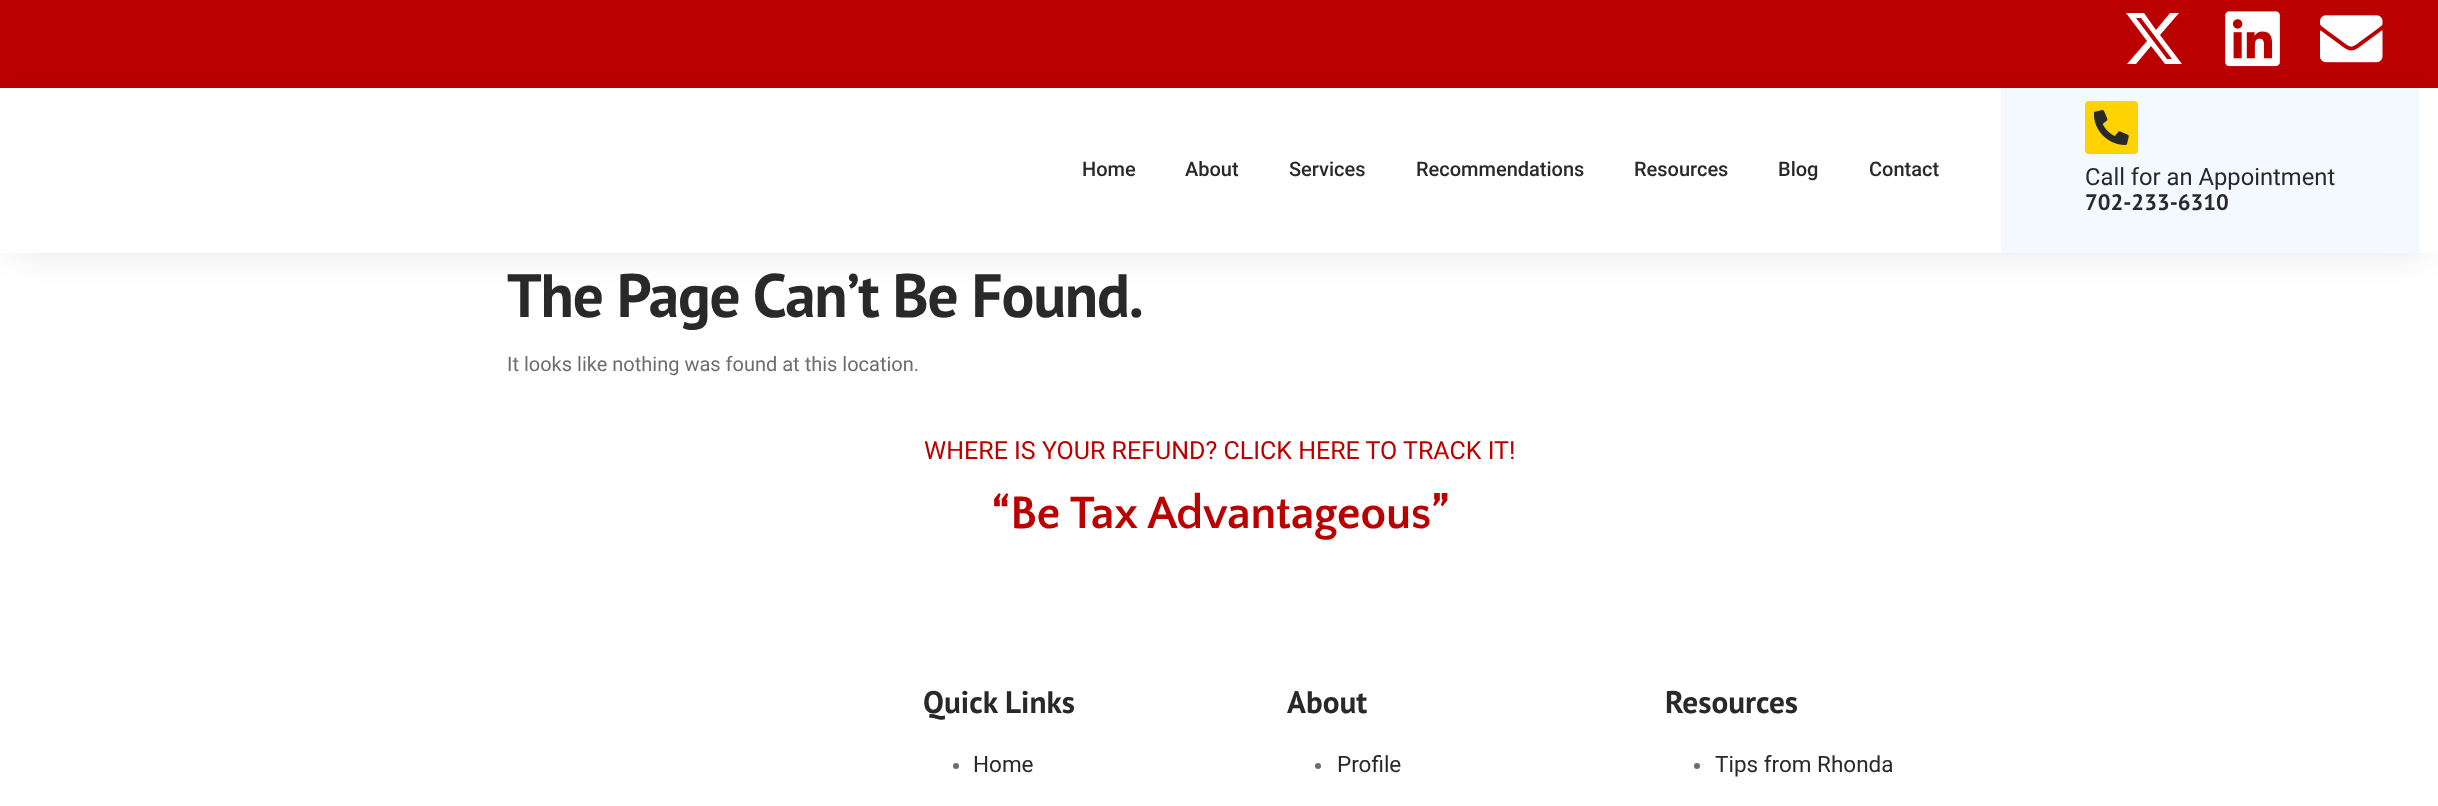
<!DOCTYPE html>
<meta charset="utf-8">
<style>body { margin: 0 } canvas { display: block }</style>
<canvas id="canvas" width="2438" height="806"></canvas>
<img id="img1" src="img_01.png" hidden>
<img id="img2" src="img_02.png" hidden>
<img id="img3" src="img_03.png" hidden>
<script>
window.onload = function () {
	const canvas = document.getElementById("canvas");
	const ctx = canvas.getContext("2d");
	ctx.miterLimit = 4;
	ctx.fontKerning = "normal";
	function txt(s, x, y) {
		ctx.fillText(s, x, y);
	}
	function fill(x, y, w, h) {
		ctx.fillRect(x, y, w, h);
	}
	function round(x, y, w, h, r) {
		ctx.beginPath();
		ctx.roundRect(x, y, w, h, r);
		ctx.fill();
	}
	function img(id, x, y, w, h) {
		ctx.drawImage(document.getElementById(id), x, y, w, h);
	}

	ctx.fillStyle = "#FFFFFF";
	fill(0, 0, 2438, 806);
	ctx.fillStyle = "#BB0100";
	fill(0, 0, 2438, 88);
	ctx.fillStyle = "#FFFFFF";
	ctx.beginPath();
	ctx.moveTo(2170, 13);
	ctx.lineTo(2179, 13);
	ctx.lineTo(2160, 35);
	ctx.lineTo(2182, 64);
	ctx.lineTo(2165, 64);
	ctx.lineTo(2151, 46);
	ctx.lineTo(2136, 64);
	ctx.lineTo(2127, 64);
	ctx.lineTo(2147, 41);
	ctx.lineTo(2126, 13);
	ctx.lineTo(2144, 13);
	ctx.lineTo(2156, 30);
	ctx.closePath();
	ctx.moveTo(2167, 59);
	ctx.lineTo(2172, 59);
	ctx.lineTo(2141, 18);
	ctx.lineTo(2136, 18);
	ctx.closePath();
	ctx.fill();
	img("img1", 2225, 11, 55, 56);
	img("img2", 2320, 15, 63, 48);
	ctx.fillStyle = "rgba(0, 0, 0, 0.15)";
	ctx.filter = "blur(19px)";
	ctx.beginPath();
	ctx.rect(13, 106, 2413, 140);
	ctx.fill();
	ctx.filter = "none";
	ctx.fillStyle = "#FFFFFF";
	fill(0, 88, 2438, 165);
	ctx.fillStyle = "#F4F9FF";
	fill(2001, 88, 418, 165);
	ctx.fillStyle = "#FFD201";
	round(2085, 101, 53, 53, 4);
	img("img3", 2094, 110, 35, 35);
	ctx.fillStyle = "#6D6D6D";
	ctx.beginPath();
	ctx.arc(956, 766, 3, 0, Math.PI * 2);
	ctx.fill();
	ctx.beginPath();
	ctx.arc(1318, 766, 3, 0, Math.PI * 2);
	ctx.fill();
	ctx.beginPath();
	ctx.arc(1697, 766, 3, 0, Math.PI * 2);
	ctx.fill();
	ctx.font = "500 20px Roboto";
	ctx.fillStyle = "#292929";
	txt("Home", 1082, 176);
	txt("About", 1185, 176);
	txt("Services", 1289, 176);
	txt("Recommendations", 1416, 176);
	txt("Resources", 1634, 176);
	txt("Blog", 1778, 176);
	txt("Contact", 1869, 176);
	ctx.font = "23.75px Roboto";
	txt("Call for an Appointment", 2085, 185);
	ctx.font = "bold 22.5px PT Sans";
	txt("702-233-6310", 2085, 210);
	ctx.letterSpacing = "-1.25px";
	ctx.font = "bold 61.25px PT Sans";
	txt("The Page Can’t Be Found.", 507, 317);
	ctx.letterSpacing = "0px";
	ctx.font = "20px Roboto";
	ctx.fillStyle = "#6D6D6D";
	txt("It looks like nothing was found at this location.", 507, 371);
	ctx.font = "25px Roboto";
	ctx.fillStyle = "#BB0100";
	txt("WHERE IS YOUR REFUND? CLICK HERE TO TRACK IT!", 924, 459);
	ctx.letterSpacing = "-0.6px";
	ctx.font = "bold 47.5px Quattrocento Sans";
	txt("“Be Tax Advantageous”", 991, 528);
	ctx.letterSpacing = "0px";
	ctx.font = "bold 31.25px PT Sans";
	ctx.fillStyle = "#292929";
	txt("Quick Links", 923, 713);
	ctx.font = "22.5px Roboto";
	txt("Home", 973, 772);
	ctx.font = "bold 31.25px PT Sans";
	txt("About", 1287, 713);
	ctx.font = "22.5px Roboto";
	txt("Profile", 1337, 772);
	ctx.font = "bold 31.25px PT Sans";
	txt("Resources", 1665, 713);
	ctx.font = "22.5px Roboto";
	txt("Tips from Rhonda", 1715, 772);
};
</script>
